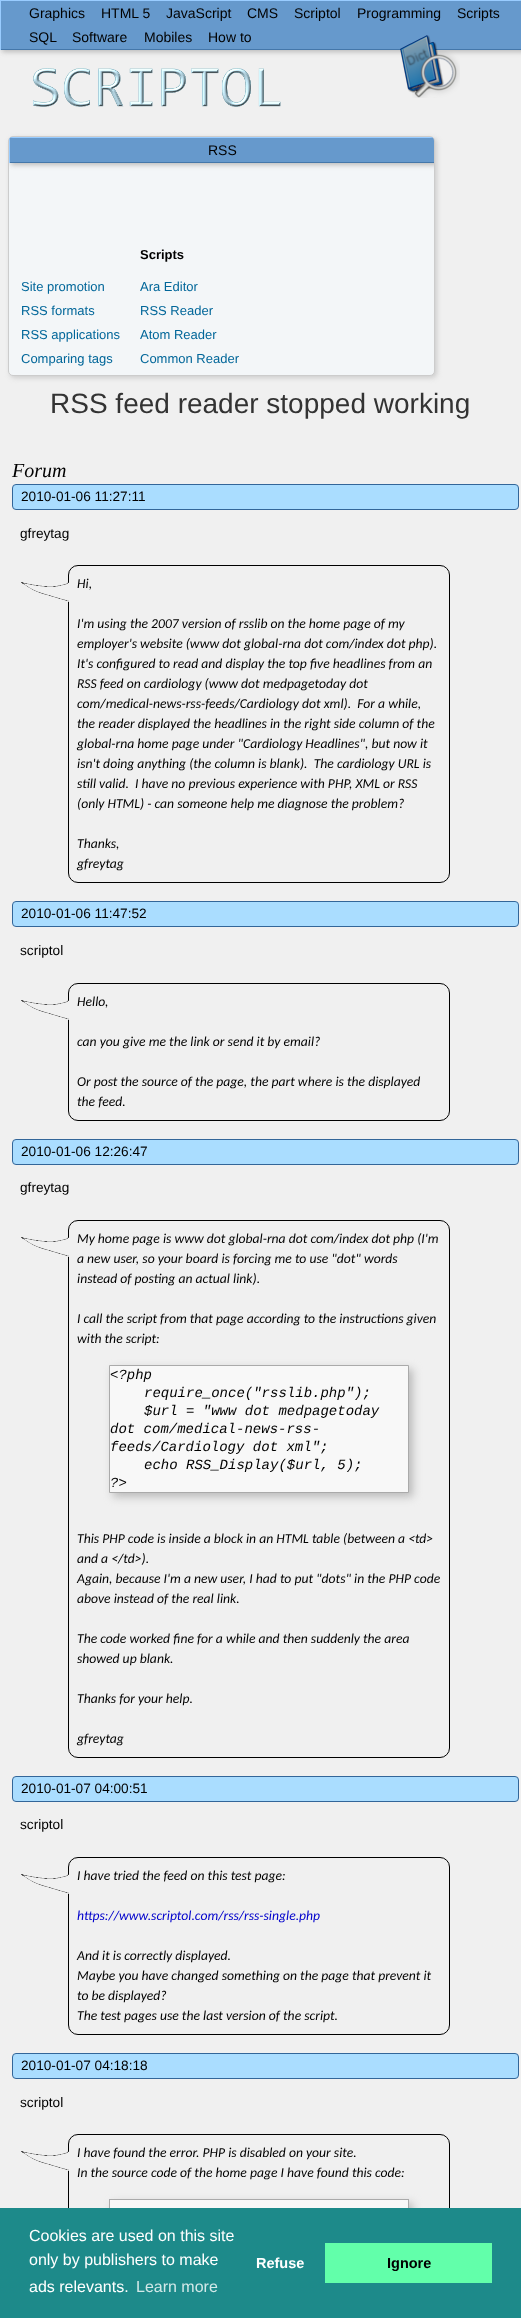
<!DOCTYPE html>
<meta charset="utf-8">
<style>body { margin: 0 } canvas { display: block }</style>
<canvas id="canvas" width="521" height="2318"></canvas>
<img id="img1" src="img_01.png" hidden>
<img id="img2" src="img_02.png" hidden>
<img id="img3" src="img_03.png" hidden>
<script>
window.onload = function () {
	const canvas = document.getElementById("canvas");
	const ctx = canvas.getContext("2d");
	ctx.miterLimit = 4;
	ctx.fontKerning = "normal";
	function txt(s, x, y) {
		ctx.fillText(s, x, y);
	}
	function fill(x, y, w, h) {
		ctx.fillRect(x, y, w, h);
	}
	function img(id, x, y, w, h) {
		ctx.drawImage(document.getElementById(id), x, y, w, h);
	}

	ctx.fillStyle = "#F0F0F0";
	fill(0, 0, 521, 2318);
	ctx.fillStyle = "#BBBBBB";
	ctx.filter = "blur(2.5px)";
	ctx.beginPath();
	ctx.rect(2, 2, 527, 50);
	ctx.fill();
	ctx.filter = "none";
	ctx.fillStyle = "#6699CC";
	fill(1, 1, 520, 48);
	ctx.fillStyle = "#99CCFF";
	fill(0, 0, 521, 1);
	ctx.fillStyle = "#4477AA";
	fill(0, 49, 521, 1);
	ctx.fillStyle = "#99CCFF";
	fill(0, 0, 1, 50);
	img("img1", 33, 68, 248, 39);
	img("img2", 400, 35, 60, 63);
	ctx.fillStyle = "#CCCCCC";
	ctx.filter = "blur(2.5px)";
	ctx.beginPath();
	ctx.roundRect(10, 138, 427, 240, 5);
	ctx.fill();
	ctx.filter = "none";
	ctx.fillStyle = "#F3F6F8";
	ctx.beginPath();
	ctx.roundRect(8.5, 136.5, 426, 239, 4.5);
	ctx.fill();
	ctx.strokeStyle = "#CCCCCC";
	ctx.stroke();
	ctx.save();
	ctx.beginPath();
	ctx.roundRect(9, 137, 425, 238, 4);
	ctx.clip();
	ctx.fillStyle = "#BBBBBB";
	ctx.filter = "blur(2.5px)";
	ctx.beginPath();
	ctx.rect(11, 139, 427, 26);
	ctx.fill();
	ctx.filter = "none";
	ctx.restore();
	ctx.fillStyle = "#6699CC";
	ctx.beginPath();
	ctx.roundRect(9, 137, 425, 26, [4, 4, 0, 0]);
	ctx.fill();
	ctx.save();
	ctx.beginPath();
	ctx.roundRect(9, 137, 425, 238, 4);
	ctx.clip();
	ctx.fillStyle = "#99CCFF";
	fill(9, 137, 425, 1);
	ctx.restore();
	ctx.fillStyle = "#4477AA";
	fill(9, 162, 425, 1);
	ctx.save();
	ctx.beginPath();
	ctx.roundRect(9, 137, 425, 238, 4);
	ctx.clip();
	ctx.fillStyle = "#99CCFF";
	fill(9, 137, 1, 26);
	ctx.restore();
	ctx.fillStyle = "#AADDFF";
	ctx.beginPath();
	ctx.roundRect(12.5, 484.5, 506, 25, 3.5);
	ctx.fill();
	ctx.strokeStyle = "#336699";
	ctx.stroke();
	ctx.beginPath();
	ctx.roundRect(68.5, 565.5, 381, 317, 9.5);
	ctx.strokeStyle = "#000000";
	ctx.stroke();
	img("img3", 21, 582, 48, 20);
	ctx.beginPath();
	ctx.roundRect(12.5, 901.5, 506, 25, 3.5);
	ctx.fill();
	ctx.strokeStyle = "#336699";
	ctx.stroke();
	ctx.beginPath();
	ctx.roundRect(68.5, 983.5, 381, 137, 9.5);
	ctx.strokeStyle = "#000000";
	ctx.stroke();
	img("img3", 21, 1000, 48, 20);
	ctx.beginPath();
	ctx.roundRect(12.5, 1139.5, 506, 25, 3.5);
	ctx.fill();
	ctx.strokeStyle = "#336699";
	ctx.stroke();
	ctx.beginPath();
	ctx.roundRect(68.5, 1220.5, 381, 537, 9.5);
	ctx.strokeStyle = "#000000";
	ctx.stroke();
	img("img3", 21, 1237, 48, 20);
	ctx.fillStyle = "#BBBBBB";
	ctx.filter = "blur(4px)";
	ctx.beginPath();
	ctx.rect(113, 1369, 300, 128);
	ctx.fill();
	ctx.filter = "none";
	ctx.fillStyle = "#F8F8F8";
	ctx.beginPath();
	ctx.rect(109.5, 1365.5, 299, 127);
	ctx.fill();
	ctx.strokeStyle = "#AAAAAA";
	ctx.stroke();
	ctx.fillStyle = "#AADDFF";
	ctx.beginPath();
	ctx.roundRect(12.5, 1776.5, 506, 25, 3.5);
	ctx.fill();
	ctx.strokeStyle = "#336699";
	ctx.stroke();
	ctx.beginPath();
	ctx.roundRect(68.5, 1857.5, 381, 177, 9.5);
	ctx.strokeStyle = "#000000";
	ctx.stroke();
	img("img3", 21, 1874, 48, 20);
	ctx.beginPath();
	ctx.roundRect(12.5, 2053.5, 506, 25, 3.5);
	ctx.fill();
	ctx.strokeStyle = "#336699";
	ctx.stroke();
	ctx.beginPath();
	ctx.roundRect(68.5, 2134.5, 381, 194, 9.5);
	ctx.strokeStyle = "#000000";
	ctx.stroke();
	img("img3", 21, 2151, 48, 20);
	ctx.fillStyle = "#BBBBBB";
	ctx.filter = "blur(4px)";
	ctx.beginPath();
	ctx.rect(113, 2203, 300, 92);
	ctx.fill();
	ctx.filter = "none";
	ctx.fillStyle = "#F8F8F8";
	fill(110, 2200, 298, 8);
	ctx.strokeStyle = "#AAAAAA";
	ctx.strokeRect(109.5, 2199.5, 299, 91);
	ctx.fillStyle = "#1D8A8A";
	fill(0, 2208, 521, 110);
	ctx.fillStyle = "#62FFAA";
	fill(325, 2243, 167, 40);
	ctx.font = "14px Liberation Sans";
	ctx.fillStyle = "#000000";
	txt("Graphics", 29, 18);
	txt("HTML 5", 101, 18);
	txt("JavaScript", 166, 18);
	txt("CMS", 247, 18);
	txt("Scriptol", 294, 18);
	txt("Programming", 357, 18);
	txt("Scripts", 457, 18);
	txt("SQL", 29, 42);
	txt("Software", 72, 42);
	txt("Mobiles", 144, 42);
	txt("How to", 208, 42);
	txt("RSS", 208, 155);
	ctx.font = "13px Liberation Sans";
	ctx.fillStyle = "#006699";
	txt("Site promotion", 21, 291);
	txt("RSS formats", 21, 315);
	txt("RSS applications", 21, 339);
	txt("Comparing tags", 21, 363);
	ctx.font = "bold 13px Liberation Sans";
	ctx.fillStyle = "#000000";
	txt("Scripts", 140, 259);
	ctx.font = "13px Liberation Sans";
	ctx.fillStyle = "#006699";
	txt("Ara Editor", 140, 291);
	txt("RSS Reader", 140, 315);
	txt("Atom Reader", 140, 339);
	txt("Common Reader", 140, 363);
	ctx.font = "28px Liberation Sans";
	ctx.fillStyle = "#333333";
	txt("RSS feed reader stopped working", 50, 413);
	ctx.font = "italic 20px Liberation Serif";
	ctx.fillStyle = "#000000";
	txt("Forum", 12, 477);
	ctx.font = "13.65px Liberation Sans";
	txt("2010-01-06 11:27:11", 21, 501);
	txt("gfreytag", 20, 538);
	ctx.font = "italic 13.65px Carlito";
	txt("Hi,", 77, 588);
	txt("I'm using the 2007 version of rsslib on the home page of my", 77, 628);
	txt("employer's website (www dot global-rna dot com/index dot php).", 77, 648);
	txt("It's configured to read and display the top five headlines from an", 77, 668);
	txt("RSS feed on cardiology (www dot medpagetoday dot", 77, 688);
	txt("com/medical-news-rss-feeds/Cardiology dot xml).  For a while,", 77, 708);
	txt("the reader displayed the headlines in the right side column of the", 77, 728);
	txt("global-rna home page under \"Cardiology Headlines\", but now it", 77, 748);
	txt("isn't doing anything (the column is blank).  The cardiology URL is", 77, 768);
	txt("still valid.  I have no previous experience with PHP, XML or RSS", 77, 788);
	txt("(only HTML) - can someone help me diagnose the problem?", 77, 808);
	txt("Thanks,", 77, 848);
	txt("gfreytag", 77, 868);
	ctx.font = "13.65px Liberation Sans";
	txt("2010-01-06 11:47:52", 21, 918);
	txt("scriptol", 20, 955);
	ctx.font = "italic 13.65px Carlito";
	txt("Hello,", 77, 1006);
	txt("can you give me the link or send it by email?", 77, 1046);
	txt("Or post the source of the page, the part where is the displayed", 77, 1086);
	txt("the feed.", 77, 1106);
	ctx.font = "13.65px Liberation Sans";
	txt("2010-01-06 12:26:47", 21, 1156);
	txt("gfreytag", 20, 1192);
	ctx.font = "italic 13.65px Carlito";
	txt("My home page is www dot global-rna dot com/index dot php (I'm", 77, 1243);
	txt("a new user, so your board is forcing me to use \"dot\" words", 77, 1263);
	txt("instead of posting an actual link).", 77, 1283);
	txt("I call the script from that page according to the instructions given", 77, 1323);
	txt("with the script:", 77, 1343);
	ctx.font = "italic 14px Liberation Mono";
	txt("<?php", 110, 1379);
	txt("require_once(\"rsslib.php\");", 144, 1397);
	txt("$url = \"www dot medpagetoday", 144, 1415);
	txt("dot com/medical-news-rss-", 110, 1433);
	txt("feeds/Cardiology dot xml\";", 110, 1451);
	txt("echo RSS_Display($url, 5);", 144, 1469);
	txt("?>", 110, 1487);
	ctx.font = "italic 13.65px Carlito";
	txt("This PHP code is inside a block in an HTML table (between a <td>", 77, 1543);
	txt("and a <\/td>).", 77, 1563);
	txt("Again, because I'm a new user, I had to put \"dots\" in the PHP code", 77, 1583);
	txt("above instead of the real link.", 77, 1603);
	txt("The code worked fine for a while and then suddenly the area", 77, 1643);
	txt("showed up blank.", 77, 1663);
	txt("Thanks for your help.", 77, 1703);
	txt("gfreytag", 77, 1743);
	ctx.font = "13.65px Liberation Sans";
	txt("2010-01-07 04:00:51", 21, 1793);
	txt("scriptol", 20, 1829);
	ctx.font = "italic 13.65px Carlito";
	txt("I have tried the feed on this test page:", 77, 1880);
	ctx.fillStyle = "#0000CC";
	txt("https://www.scriptol.com/rss/rss-single.php", 77, 1920);
	ctx.fillStyle = "#000000";
	txt("And it is correctly displayed.", 77, 1960);
	txt("Maybe you have changed something on the page that prevent it", 77, 1980);
	txt("to be displayed?", 77, 2000);
	txt("The test pages use the last version of the script.", 77, 2020);
	ctx.font = "13.65px Liberation Sans";
	txt("2010-01-07 04:18:18", 21, 2070);
	txt("scriptol", 20, 2107);
	ctx.font = "italic 13.65px Carlito";
	txt("I have found the error. PHP is disabled on your site.", 77, 2157);
	txt("In the source code of the home page I have found this code:", 77, 2177);
	ctx.font = "16px Liberation Sans";
	ctx.fillStyle = "#FFFFFF";
	txt("Cookies are used on this site", 29, 2241);
	txt("only by publishers to make", 29, 2265);
	txt("ads relevants.", 29, 2292);
	ctx.fillStyle = "#D2E8E8";
	txt("Learn more", 136, 2292);
	ctx.font = "bold 14.5px Liberation Sans";
	ctx.fillStyle = "#FFFFFF";
	txt("Refuse", 256, 2268);
	ctx.fillStyle = "#000000";
	txt("Ignore", 387, 2268);
};
</script>
